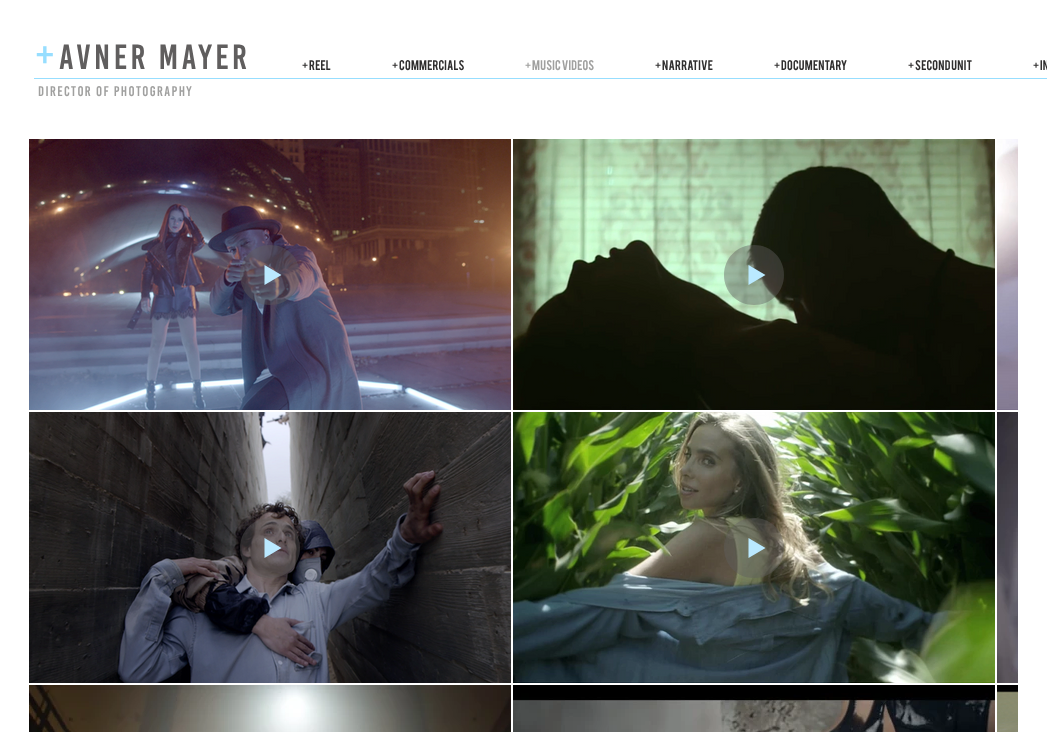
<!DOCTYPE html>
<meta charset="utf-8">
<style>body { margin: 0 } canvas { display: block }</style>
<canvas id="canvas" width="1047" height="732"></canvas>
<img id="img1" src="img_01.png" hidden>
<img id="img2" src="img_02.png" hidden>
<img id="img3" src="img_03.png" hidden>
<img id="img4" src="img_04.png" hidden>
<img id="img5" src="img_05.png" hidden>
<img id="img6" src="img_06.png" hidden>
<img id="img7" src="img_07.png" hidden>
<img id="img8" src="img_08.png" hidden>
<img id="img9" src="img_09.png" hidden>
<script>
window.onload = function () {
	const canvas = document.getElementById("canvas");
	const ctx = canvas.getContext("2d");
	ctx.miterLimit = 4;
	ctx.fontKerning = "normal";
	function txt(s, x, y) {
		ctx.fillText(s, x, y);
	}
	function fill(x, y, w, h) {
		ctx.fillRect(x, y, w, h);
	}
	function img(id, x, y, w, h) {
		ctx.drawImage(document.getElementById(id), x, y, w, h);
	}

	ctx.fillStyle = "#FFFFFF";
	fill(0, 0, 1047, 732);
	ctx.fillStyle = "#97DEFF";
	fill(34, 78, 1013, 1);
	img("img1", 29, 139, 482, 271);
	ctx.fillStyle = "rgba(96, 94, 94, 0.44)";
	ctx.beginPath();
	ctx.moveTo(270, 245);
	ctx.bezierCurveTo(287, 245, 300, 258, 300, 275);
	ctx.bezierCurveTo(300, 292, 287, 305, 270, 305);
	ctx.bezierCurveTo(253, 305, 240, 292, 240, 275);
	ctx.bezierCurveTo(240, 258, 253, 245, 270, 245);
	ctx.closePath();
	ctx.fill("evenodd");
	ctx.fillStyle = "#BAE9FF";
	ctx.beginPath();
	ctx.moveTo(281.5, 275);
	ctx.lineTo(264.5, 285);
	ctx.lineTo(264.5, 265);
	ctx.closePath();
	ctx.fill();
	img("img2", 513, 139, 482, 271);
	ctx.fillStyle = "rgba(96, 94, 94, 0.44)";
	ctx.beginPath();
	ctx.moveTo(754, 245);
	ctx.bezierCurveTo(771, 245, 784, 258, 784, 275);
	ctx.bezierCurveTo(784, 292, 771, 305, 754, 305);
	ctx.bezierCurveTo(737, 305, 724, 292, 724, 275);
	ctx.bezierCurveTo(724, 258, 737, 245, 754, 245);
	ctx.closePath();
	ctx.fill("evenodd");
	ctx.fillStyle = "#BAE9FF";
	ctx.beginPath();
	ctx.moveTo(765.5, 275);
	ctx.lineTo(748.5, 285);
	ctx.lineTo(748.5, 265);
	ctx.closePath();
	ctx.fill();
	img("img3", 997, 139, 21, 271);
	img("img4", 29, 412, 482, 271);
	ctx.fillStyle = "rgba(96, 94, 94, 0.44)";
	ctx.beginPath();
	ctx.moveTo(270, 518);
	ctx.bezierCurveTo(287, 518, 300, 531, 300, 548);
	ctx.bezierCurveTo(300, 565, 287, 578, 270, 578);
	ctx.bezierCurveTo(253, 578, 240, 565, 240, 548);
	ctx.bezierCurveTo(240, 531, 253, 518, 270, 518);
	ctx.closePath();
	ctx.fill("evenodd");
	ctx.fillStyle = "#BAE9FF";
	ctx.beginPath();
	ctx.moveTo(281.5, 548);
	ctx.lineTo(264.5, 558);
	ctx.lineTo(264.5, 538);
	ctx.closePath();
	ctx.fill();
	img("img5", 513, 412, 482, 271);
	ctx.fillStyle = "rgba(96, 94, 94, 0.44)";
	ctx.beginPath();
	ctx.moveTo(754, 518);
	ctx.bezierCurveTo(771, 518, 784, 531, 784, 548);
	ctx.bezierCurveTo(784, 565, 771, 578, 754, 578);
	ctx.bezierCurveTo(737, 578, 724, 565, 724, 548);
	ctx.bezierCurveTo(724, 531, 737, 518, 754, 518);
	ctx.closePath();
	ctx.fill("evenodd");
	ctx.fillStyle = "#BAE9FF";
	ctx.beginPath();
	ctx.moveTo(765.5, 548);
	ctx.lineTo(748.5, 558);
	ctx.lineTo(748.5, 538);
	ctx.closePath();
	ctx.fill();
	img("img6", 997, 412, 21, 271);
	img("img7", 29, 685, 482, 47);
	img("img8", 513, 685, 482, 47);
	img("img9", 997, 685, 21, 47);
	ctx.letterSpacing = "5px";
	ctx.font = "41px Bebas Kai";
	ctx.fillStyle = "#97DEFF";
	txt("+", 36, 69);
	ctx.letterSpacing = "3.5px";
	ctx.font = "35px Bebas Kai";
	ctx.fillStyle = "#605E5E";
	txt("AVNER MAYER", 59, 69);
	ctx.letterSpacing = "1.4px";
	ctx.font = "14px Bebas Kai";
	ctx.fillStyle = "#A0A09F";
	txt("DIRECTOR OF Photography", 38, 96);
	ctx.letterSpacing = "0px";
	ctx.font = "11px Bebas";
	ctx.fillStyle = "#2F2E2E";
	txt("+ REEL", 302, 70);
	txt("+ commercials", 392, 70);
	ctx.fillStyle = "#A0A09F";
	txt("+ MUSIC VIDEOS", 525, 70);
	ctx.fillStyle = "#2F2E2E";
	txt("+ NARRATIVE", 655, 70);
	txt("+ DOCUMENTARY", 774, 70);
	txt("+ second unit", 908, 70);
	txt("+ IN", 1033, 70);
};
</script>
